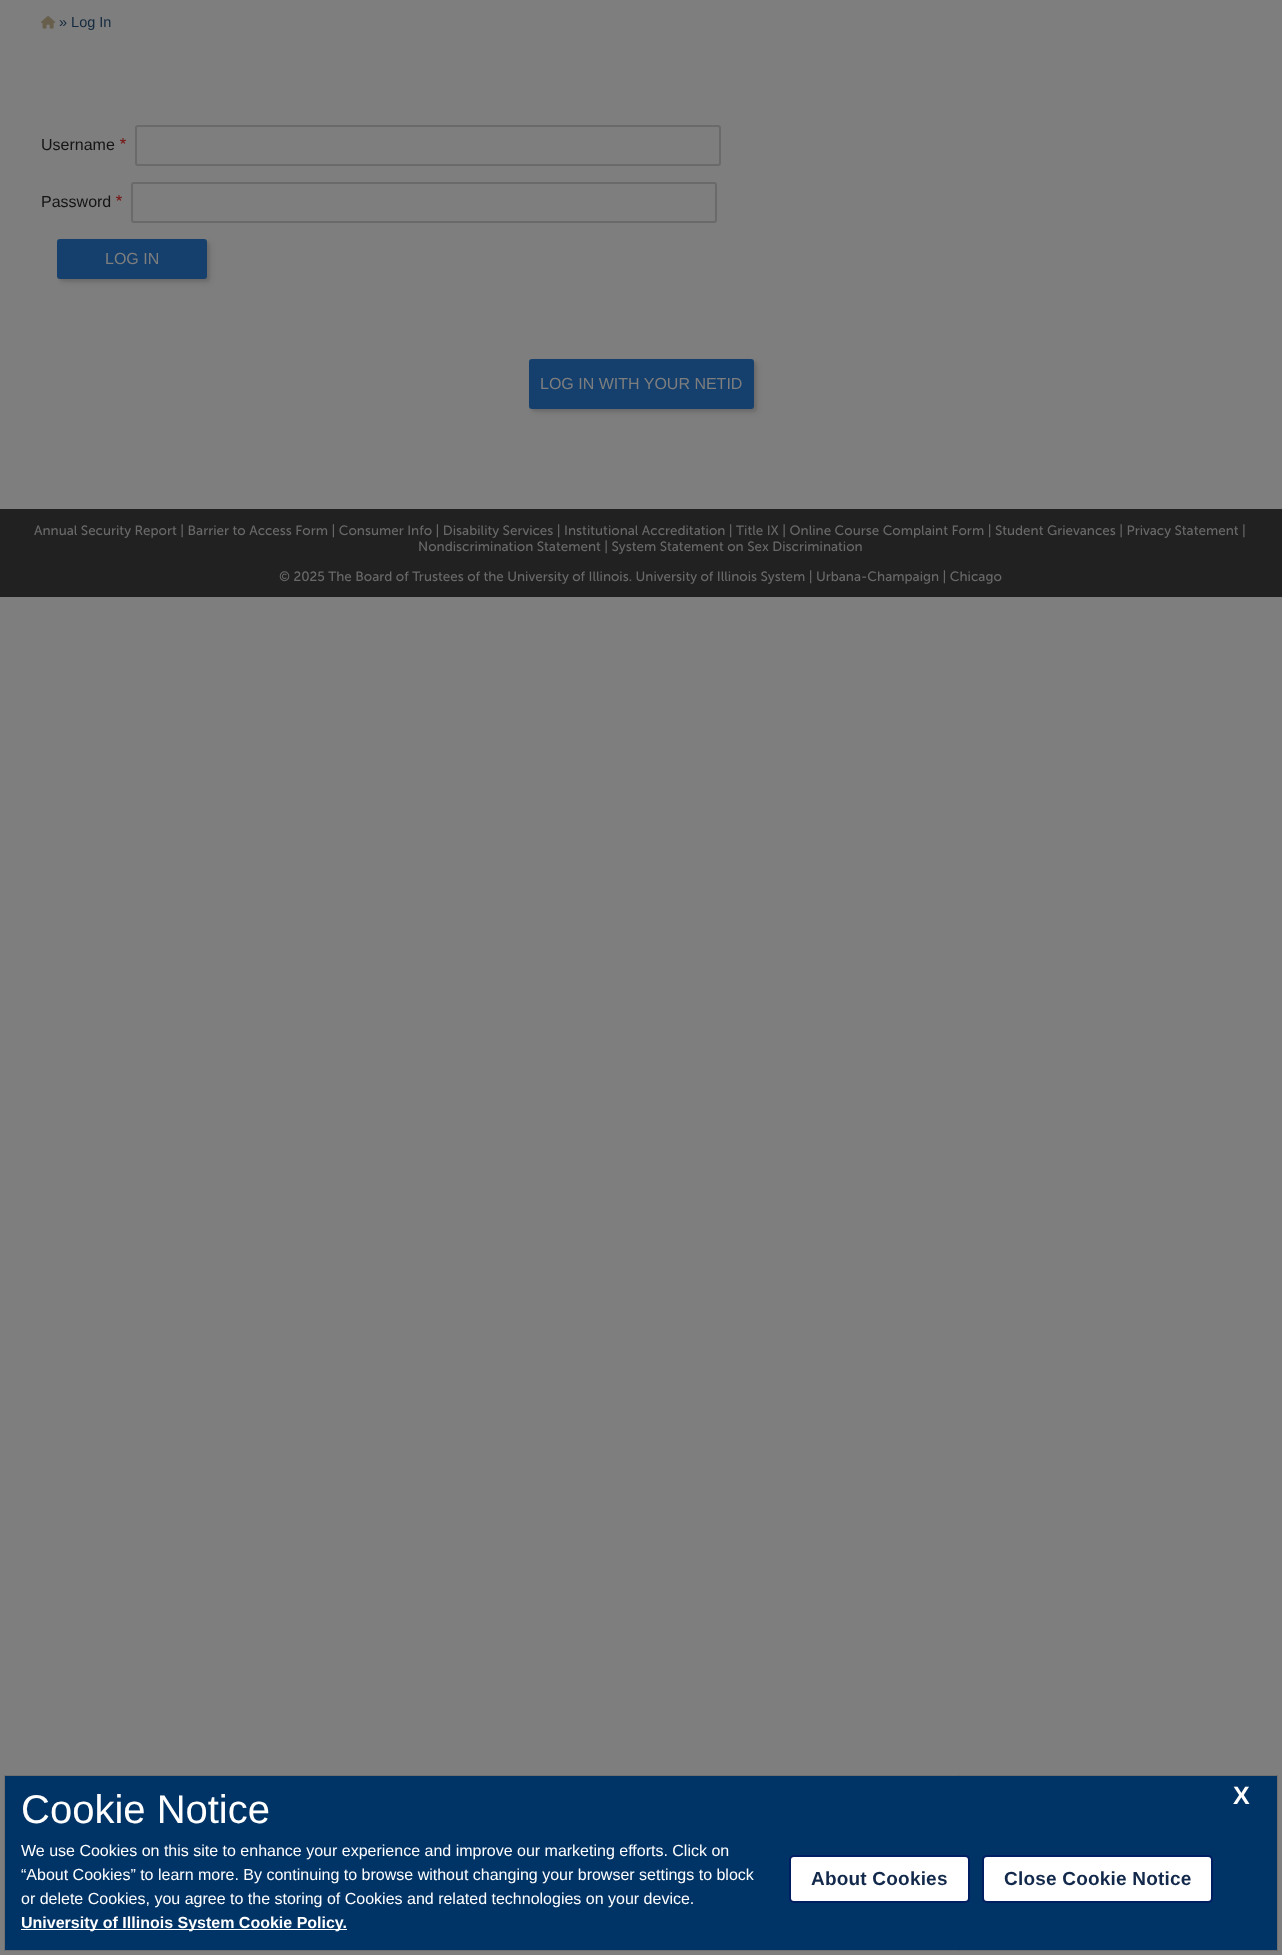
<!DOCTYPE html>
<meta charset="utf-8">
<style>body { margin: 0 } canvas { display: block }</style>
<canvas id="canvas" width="1282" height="1955"></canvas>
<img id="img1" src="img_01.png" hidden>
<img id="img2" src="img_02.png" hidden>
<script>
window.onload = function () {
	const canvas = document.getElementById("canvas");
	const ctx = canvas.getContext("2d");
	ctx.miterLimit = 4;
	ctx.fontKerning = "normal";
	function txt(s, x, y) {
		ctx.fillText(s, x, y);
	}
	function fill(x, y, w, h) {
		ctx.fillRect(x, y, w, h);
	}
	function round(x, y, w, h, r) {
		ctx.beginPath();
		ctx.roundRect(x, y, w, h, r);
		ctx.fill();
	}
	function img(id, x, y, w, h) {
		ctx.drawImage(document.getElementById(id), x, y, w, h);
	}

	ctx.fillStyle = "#7E7E7E";
	fill(0, 0, 1282, 1955);
	img("img1", 41, 16, 15, 13);
	img("img2", 120, 138, 6, 6);
	ctx.beginPath();
	ctx.roundRect(136, 126, 584, 39, 2);
	ctx.strokeStyle = "#6A6A6A";
	ctx.lineWidth = 2;
	ctx.stroke();
	img("img2", 116, 195, 6, 6);
	ctx.beginPath();
	ctx.roundRect(132, 183, 584, 39, 2);
	ctx.stroke();
	ctx.fillStyle = "rgba(21, 21, 21, 0.1)";
	ctx.filter = "blur(2.5px)";
	ctx.beginPath();
	ctx.roundRect(61, 243, 150, 40, 3);
	ctx.fill();
	ctx.filter = "none";
	ctx.filter = "blur(1px)";
	ctx.beginPath();
	ctx.roundRect(59, 241, 150, 40, 3);
	ctx.fill();
	ctx.filter = "none";
	ctx.fillStyle = "#15406D";
	round(57, 239, 150, 40, 3);
	ctx.fillStyle = "rgba(21, 21, 21, 0.1)";
	ctx.filter = "blur(2.5px)";
	ctx.beginPath();
	ctx.roundRect(533, 363, 225, 50, 3);
	ctx.fill();
	ctx.filter = "none";
	ctx.filter = "blur(1px)";
	ctx.beginPath();
	ctx.roundRect(531, 361, 225, 50, 3);
	ctx.fill();
	ctx.filter = "none";
	ctx.fillStyle = "#15406D";
	round(529, 359, 225, 50, 3);
	ctx.fillStyle = "#212121";
	fill(0, 509, 1282, 88);
	ctx.fillStyle = "#003366";
	ctx.beginPath();
	ctx.rect(4.5, 1775.5, 1273, 175);
	ctx.fill();
	ctx.strokeStyle = "#707070";
	ctx.lineWidth = 1;
	ctx.stroke();
	ctx.fillStyle = "#FFFFFF";
	fill(21, 1929, 326, 1);
	ctx.beginPath();
	ctx.roundRect(790, 1856, 179, 46, 4);
	ctx.fill();
	ctx.strokeStyle = "#001E62";
	ctx.lineWidth = 2;
	ctx.stroke();
	ctx.beginPath();
	ctx.roundRect(983, 1856, 229, 46, 4);
	ctx.fill();
	ctx.stroke();
	ctx.font = "14.5px Liberation Sans";
	ctx.fillStyle = "#152A3F";
	txt("» Log In", 59, 27);
	ctx.font = "16px Liberation Sans";
	ctx.fillStyle = "#151515";
	txt("Username", 41, 150);
	txt("Password", 41, 207);
	ctx.fillStyle = "#7E7E7E";
	txt("LOG IN", 105, 264);
	txt("LOG IN WITH YOUR NETID", 540, 389);
	ctx.font = "13.45px 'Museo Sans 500'";
	ctx.fillStyle = "#696969";
	txt("Annual Security Report | Barrier to Access Form | Consumer Info | Disability Services | Institutional Accreditation | Title IX | Online Course Complaint Form | Student Grievances | Privacy Statement |", 34, 535);
	txt("Nondiscrimination Statement | System Statement on Sex Discrimination", 418, 551);
	txt("© 2025 The Board of Trustees of the University of Illinois. University of Illinois System | Urbana-Champaign | Chicago", 279, 581);
	ctx.font = "40px Liberation Sans";
	ctx.fillStyle = "#FFFFFF";
	txt("Cookie Notice", 21, 1823);
	ctx.font = "bold 25px Liberation Sans";
	txt("X", 1233, 1804);
	ctx.font = "16px Liberation Sans";
	txt("We use Cookies on this site to enhance your experience and improve our marketing efforts. Click on", 21, 1856);
	txt("“About Cookies” to learn more. By continuing to browse without changing your browser settings to block", 21, 1880);
	txt("or delete Cookies, you agree to the storing of Cookies and related technologies on your device.", 21, 1904);
	ctx.font = "bold 16px Liberation Sans";
	txt("University of Illinois System Cookie Policy.", 21, 1928);
	ctx.letterSpacing = "0.2px";
	ctx.font = "bold 19px Liberation Sans";
	ctx.fillStyle = "#13294B";
	txt("About Cookies", 811, 1885);
	txt("Close Cookie Notice", 1004, 1885);
};
</script>
